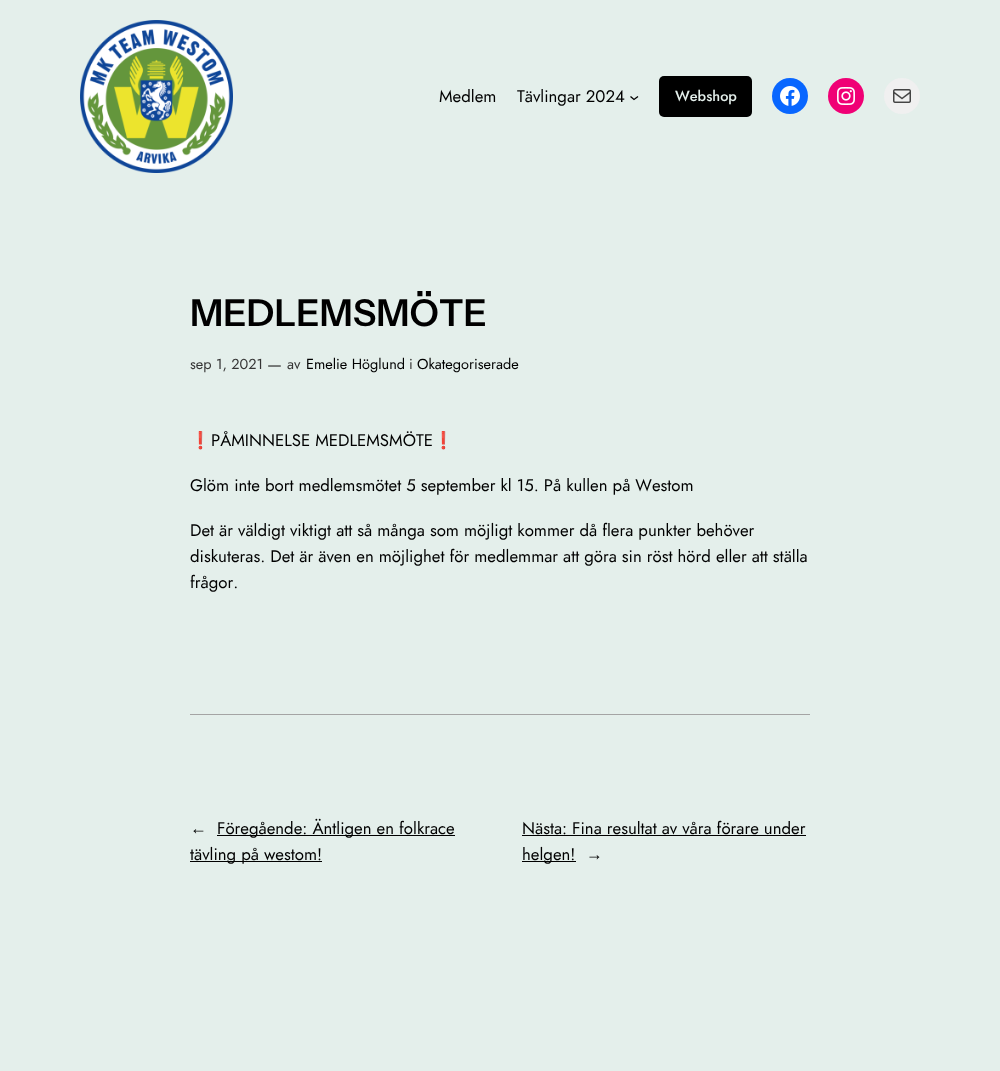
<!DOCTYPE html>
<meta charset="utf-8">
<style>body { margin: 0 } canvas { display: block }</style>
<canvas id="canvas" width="1000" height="1071"></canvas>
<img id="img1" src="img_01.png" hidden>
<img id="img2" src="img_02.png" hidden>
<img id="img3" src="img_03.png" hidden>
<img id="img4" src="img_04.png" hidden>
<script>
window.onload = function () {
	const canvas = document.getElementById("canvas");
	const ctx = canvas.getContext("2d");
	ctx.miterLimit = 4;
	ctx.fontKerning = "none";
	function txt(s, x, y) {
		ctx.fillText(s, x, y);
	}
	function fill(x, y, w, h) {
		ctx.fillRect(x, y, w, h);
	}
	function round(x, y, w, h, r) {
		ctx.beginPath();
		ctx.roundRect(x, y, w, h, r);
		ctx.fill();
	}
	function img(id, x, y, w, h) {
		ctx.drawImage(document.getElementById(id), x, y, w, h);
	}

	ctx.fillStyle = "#E4EFEB";
	fill(0, 0, 1000, 1071);
	img("img1", 80, 20, 153, 153);
	ctx.beginPath();
	ctx.moveTo(630.5, 96.5);
	ctx.lineTo(634, 99.5);
	ctx.lineTo(638, 96.5);
	ctx.strokeStyle = "#000000";
	ctx.lineWidth = 1.3;
	ctx.stroke();
	ctx.fillStyle = "#000000";
	round(659, 76, 93, 41, 5);
	ctx.fillStyle = "#0866FF";
	ctx.beginPath();
	ctx.arc(790, 96, 18, 0, Math.PI * 2);
	ctx.fill();
	img("img2", 780, 86, 20, 20);
	ctx.fillStyle = "#F00075";
	ctx.beginPath();
	ctx.arc(846, 96, 18, 0, Math.PI * 2);
	ctx.fill();
	img("img3", 837, 87, 18, 18);
	ctx.fillStyle = "#F0F0F0";
	ctx.beginPath();
	ctx.arc(902, 96, 18, 0, Math.PI * 2);
	ctx.fill();
	img("img4", 893, 89, 18, 14);
	ctx.fillStyle = "#A4A4A4";
	fill(190, 714, 620, 1);
	ctx.fillStyle = "#000000";
	fill(217, 835, 238, 1);
	fill(190, 861, 132, 1);
	fill(522, 835, 284, 1);
	fill(522, 861, 54, 1);
	ctx.font = "16.8px Jost";
	txt("Medlem", 439, 102);
	txt("Tävlingar 2024", 517, 102);
	ctx.font = "500 14.5px Jost";
	ctx.fillStyle = "#E4EFEB";
	txt("Webshop", 675, 101);
	ctx.font = "600 37px Instrument Sans";
	ctx.fillStyle = "#000000";
	txt("MEDLEMSMÖTE", 190, 326);
	ctx.font = "14.5px Jost";
	ctx.fillStyle = "#353535";
	txt("sep 1, 2021", 190, 369);
	ctx.font = "16.8px Jost";
	txt("—", 267, 370);
	ctx.font = "14.5px Jost";
	txt("av", 287, 369);
	ctx.fillStyle = "#000000";
	txt("Emelie Höglund", 306, 369);
	ctx.fillStyle = "#353535";
	txt("i", 409, 369);
	ctx.fillStyle = "#000000";
	txt("Okategoriserade", 417, 369);
	ctx.font = "16.8px Noto Color Emoji";
	txt("❗", 190, 446);
	ctx.font = "16.8px Jost";
	txt("PÅMINNELSE MEDLEMSMÖTE", 211, 446);
	ctx.font = "16.8px Noto Color Emoji";
	txt("❗", 433, 446);
	ctx.font = "16.8px Jost";
	txt("Glöm inte bort medlemsmötet 5 september kl 15. På kullen på Westom", 190, 491);
	txt("Det är väldigt viktigt att så många som möjligt kommer då flera punkter behöver", 190, 536);
	txt("diskuteras. Det är även en möjlighet för medlemmar att göra sin röst hörd eller att ställa", 190, 562);
	txt("frågor.", 190, 588);
	ctx.font = "16.8px Liberation Sans";
	txt("←", 190, 834);
	ctx.font = "16.8px Jost";
	txt("Föregående: Äntligen en folkrace", 217, 834);
	txt("tävling på westom!", 190, 860);
	txt("Nästa: Fina resultat av våra förare under", 522, 834);
	txt("helgen!", 522, 860);
	ctx.font = "16.8px Liberation Sans";
	txt("→", 586, 860);
};
</script>
